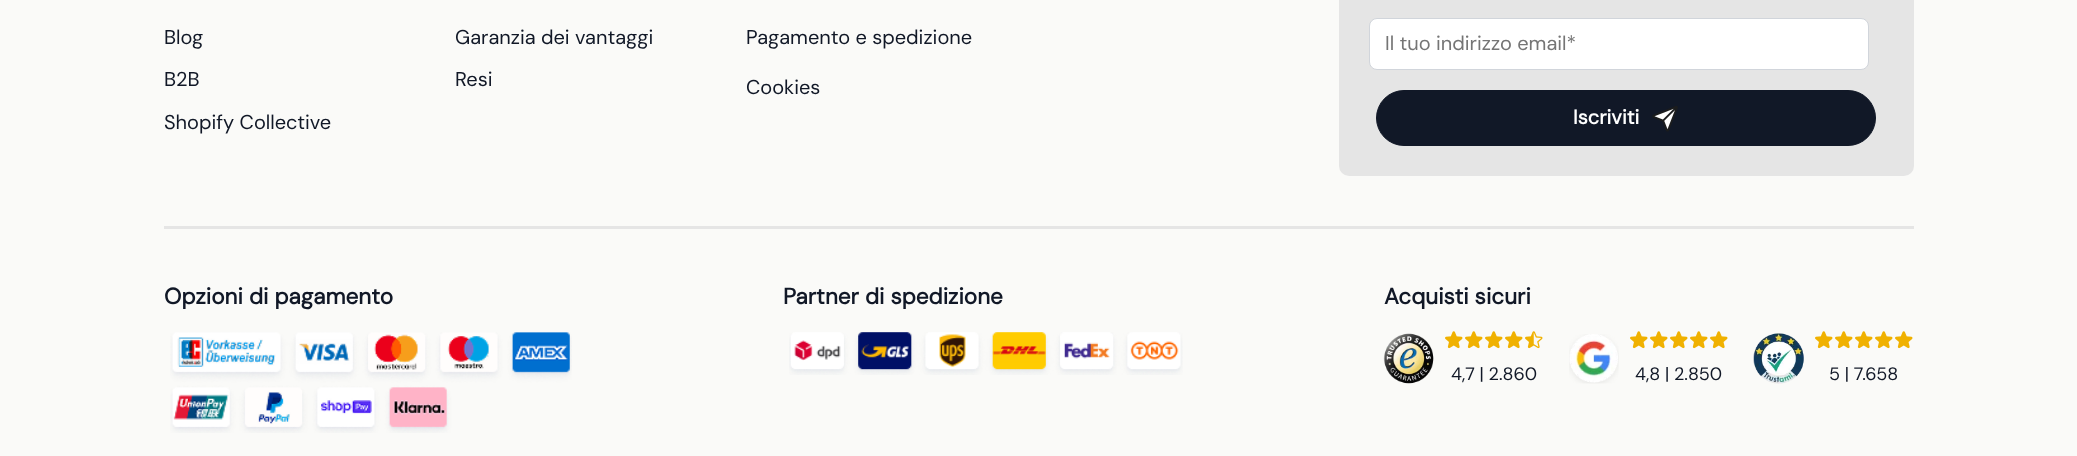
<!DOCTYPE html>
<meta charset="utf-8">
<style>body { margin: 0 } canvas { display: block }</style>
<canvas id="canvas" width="2077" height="456"></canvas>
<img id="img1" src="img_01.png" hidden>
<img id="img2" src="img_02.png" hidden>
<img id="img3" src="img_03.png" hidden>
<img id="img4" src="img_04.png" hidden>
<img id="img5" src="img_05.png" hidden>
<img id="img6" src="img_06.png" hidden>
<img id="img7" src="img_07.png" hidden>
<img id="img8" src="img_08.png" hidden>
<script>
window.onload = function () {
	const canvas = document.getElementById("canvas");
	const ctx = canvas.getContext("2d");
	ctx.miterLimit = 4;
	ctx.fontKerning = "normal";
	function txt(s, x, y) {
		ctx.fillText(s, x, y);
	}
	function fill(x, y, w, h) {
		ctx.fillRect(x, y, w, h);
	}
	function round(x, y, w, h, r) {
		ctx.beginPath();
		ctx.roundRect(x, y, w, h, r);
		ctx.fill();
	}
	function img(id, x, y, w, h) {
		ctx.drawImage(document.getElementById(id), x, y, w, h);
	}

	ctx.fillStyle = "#FAFAF8";
	fill(0, 0, 2077, 456);
	ctx.fillStyle = "#E5E5E5";
	round(1339, -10, 575, 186, 10);
	ctx.fillStyle = "#FFFFFF";
	ctx.beginPath();
	ctx.roundRect(1369.5, 18.5, 499, 51, 7.5);
	ctx.fill();
	ctx.strokeStyle = "#D1D5DB";
	ctx.stroke();
	ctx.fillStyle = "#111827";
	ctx.beginPath();
	ctx.roundRect(1376.5, 90.5, 499, 55, 27.5);
	ctx.fill();
	ctx.strokeStyle = "#111827";
	ctx.stroke();
	img("img1", 1652, 106, 26, 26);
	ctx.fillStyle = "#E5E5E5";
	fill(164, 226, 1750, 3);
	img("img2", 170, 332, 402, 101);
	img("img3", 789, 332, 394, 43);
	img("img4", 1383, 333, 51, 51);
	img("img5", 1445, 331, 98, 18);
	img("img6", 1569, 334, 50, 50);
	img("img7", 1630, 331, 98, 18);
	img("img8", 1753, 333, 51, 51);
	img("img7", 1815, 331, 98, 18);
	ctx.font = "20px DM Sans";
	ctx.fillStyle = "#111827";
	txt("Blog", 164, 44);
	txt("B2B", 164, 86);
	txt("Shopify Collective", 164, 129);
	txt("Garanzia dei vantaggi", 455, 44);
	txt("Resi", 455, 86);
	txt("Pagamento e spedizione", 746, 44);
	txt("Cookies", 746, 94);
	ctx.fillStyle = "#757575";
	txt("Il tuo indirizzo email*", 1385, 50);
	ctx.font = "bold 20px DM Sans";
	ctx.fillStyle = "#FFFFFF";
	txt("Iscriviti", 1573, 124);
	ctx.font = "bold 22.5px DM Sans";
	ctx.fillStyle = "#111827";
	txt("Opzioni di pagamento", 164, 304);
	txt("Partner di spedizione", 783, 304);
	txt("Acquisti sicuri", 1384, 304);
	ctx.font = "18px DM Sans";
	txt("4,7 | 2.860", 1451, 380);
	txt("4,8 | 2.850", 1635, 380);
	txt("5 | 7.658", 1829, 380);
};
</script>
